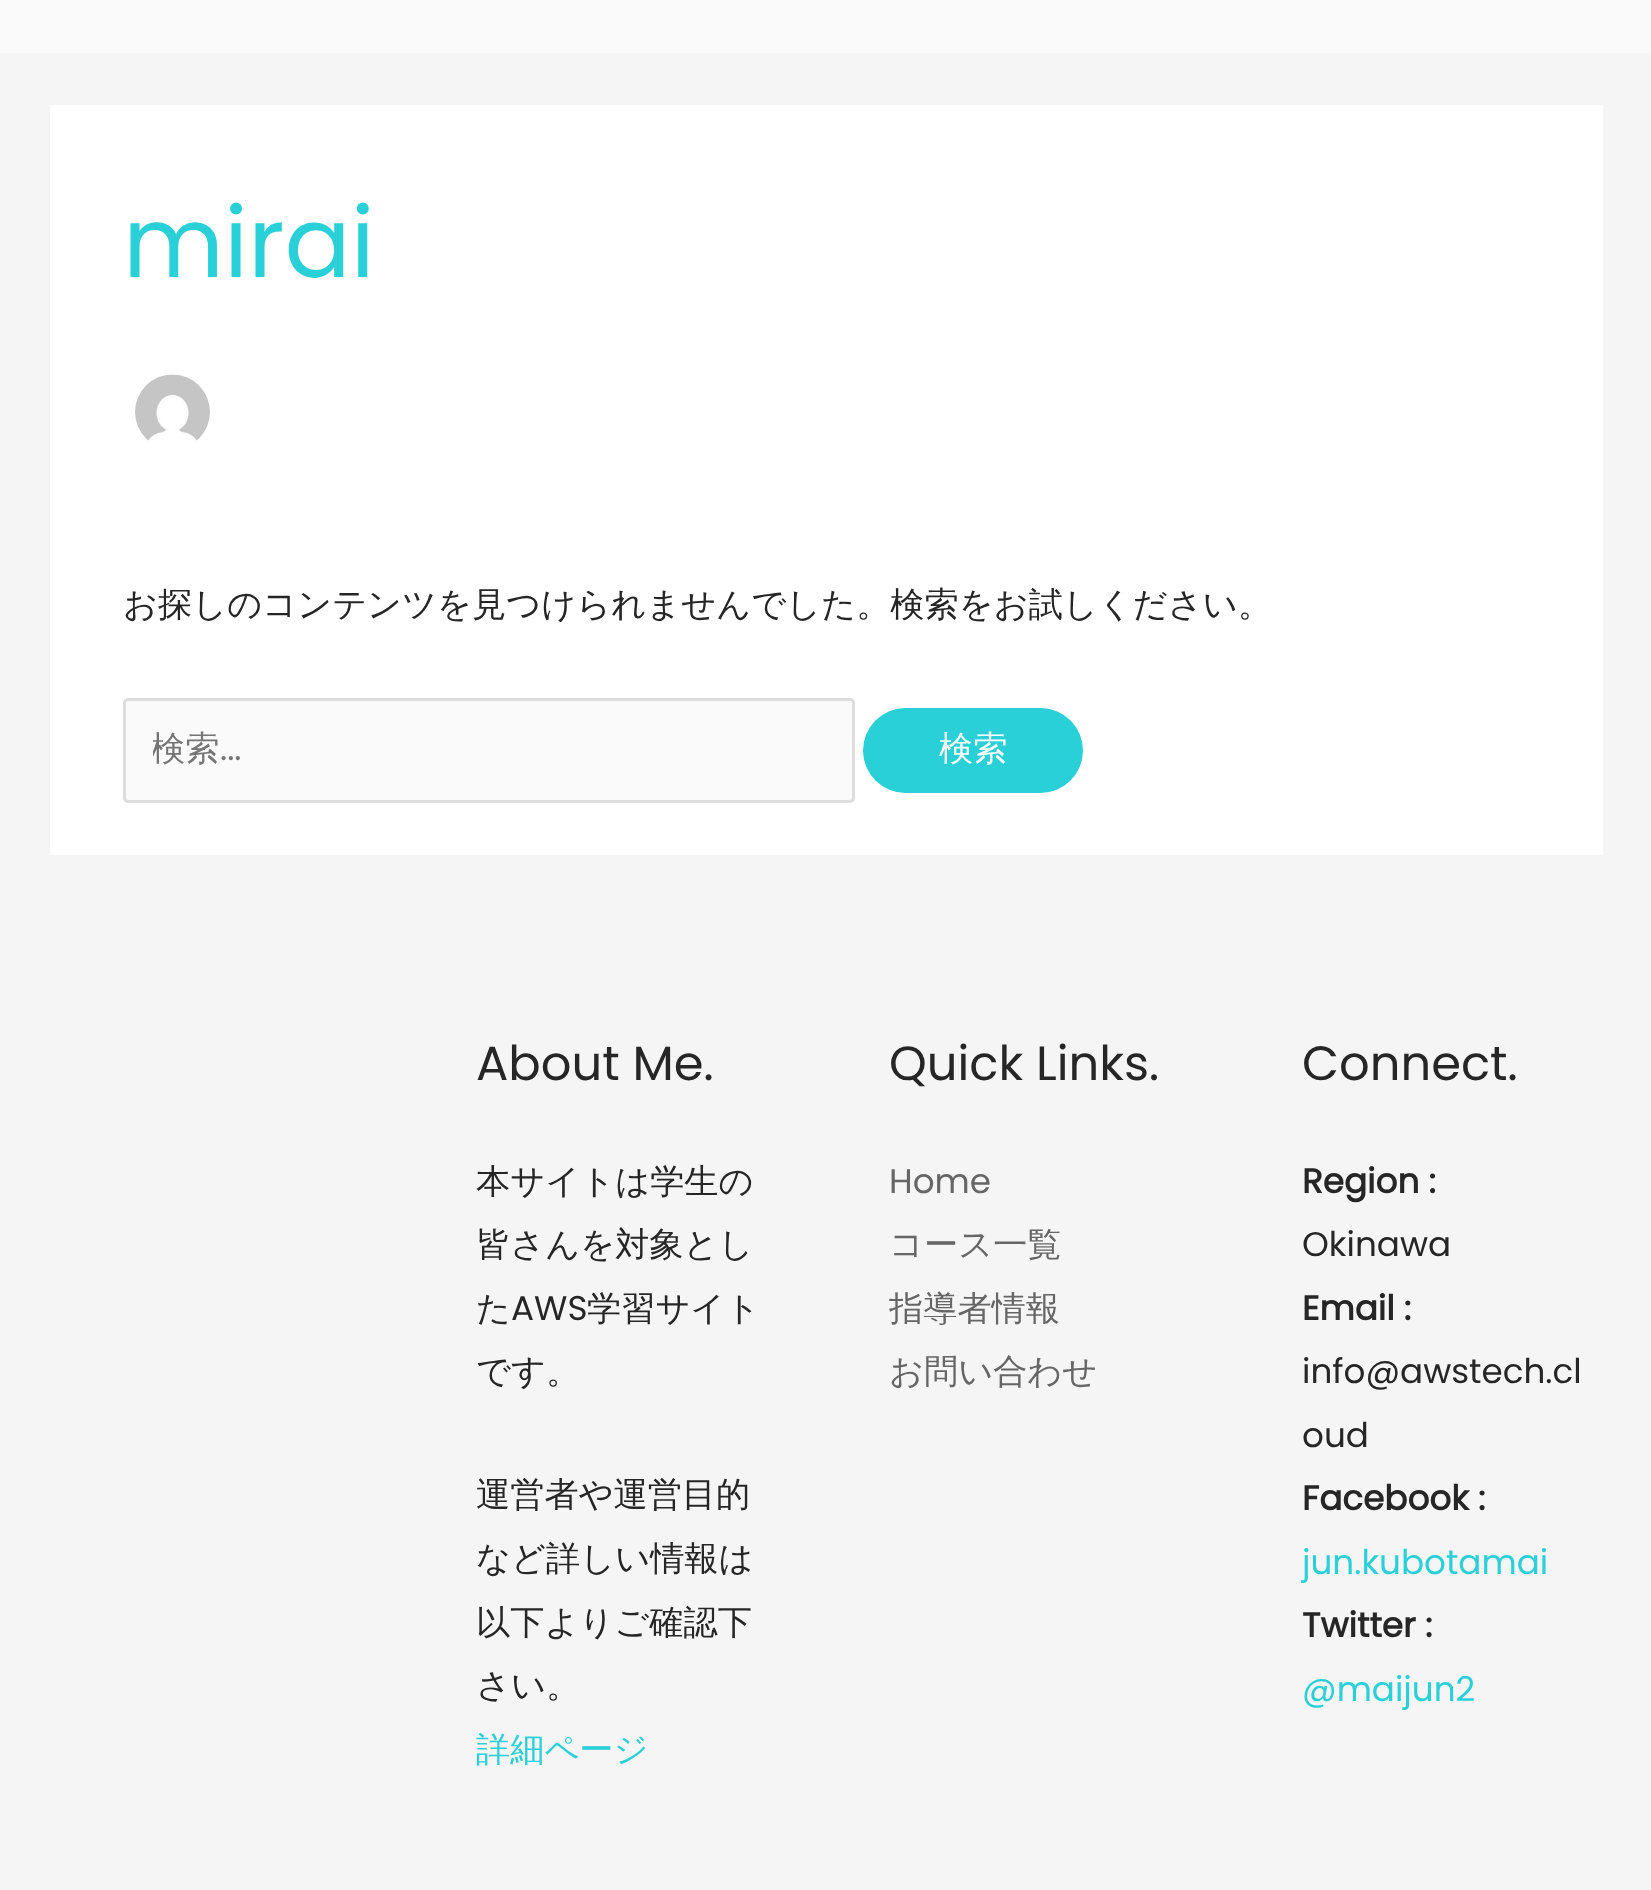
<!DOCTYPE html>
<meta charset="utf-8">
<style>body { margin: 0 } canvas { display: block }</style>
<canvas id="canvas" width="1651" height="1890"></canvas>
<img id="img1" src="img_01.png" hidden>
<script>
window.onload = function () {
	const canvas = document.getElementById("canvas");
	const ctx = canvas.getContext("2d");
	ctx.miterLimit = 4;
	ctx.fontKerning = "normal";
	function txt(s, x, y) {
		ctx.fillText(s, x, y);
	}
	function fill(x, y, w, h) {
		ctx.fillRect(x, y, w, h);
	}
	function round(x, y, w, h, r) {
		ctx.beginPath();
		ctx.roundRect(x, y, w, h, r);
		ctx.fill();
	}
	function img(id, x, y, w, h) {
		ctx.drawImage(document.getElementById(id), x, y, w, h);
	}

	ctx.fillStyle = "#F5F5F5";
	fill(0, 0, 1651, 1890);
	ctx.fillStyle = "#FAFAFA";
	fill(0, 0, 1651, 53);
	ctx.fillStyle = "#FFFFFF";
	fill(50, 105, 1553, 750);
	img("img1", 135, 374, 75, 67);
	ctx.fillStyle = "#FAFAFA";
	ctx.beginPath();
	ctx.roundRect(124.5, 699.5, 729, 102, 3.5);
	ctx.fill();
	ctx.strokeStyle = "#DDDDDD";
	ctx.lineWidth = 3;
	ctx.stroke();
	ctx.fillStyle = "#29D0D8";
	round(863, 708, 220, 85, 42.5);
	ctx.font = "98px Poppins";
	txt("mirai", 123, 277);
	ctx.font = "500 34.2px WenQuanYi Zen Hei";
	ctx.fillStyle = "#262626";
	txt("お探しのコンテンツを見つけられませんでした。検索をお試しください。", 123, 616);
	ctx.save();
	ctx.beginPath();
	ctx.rect(153, 725, 665, 50);
	ctx.clip();
	ctx.fillStyle = "#757575";
	txt("検索", 151, 760);
	ctx.restore();
	ctx.font = "34.2px Poppins";
	ctx.fillStyle = "#757575";
	txt("...", 220, 760);
	ctx.font = "500 34.2px WenQuanYi Zen Hei";
	ctx.fillStyle = "#FFFFFF";
	txt("検索", 939, 760);
	ctx.font = "48px Poppins";
	ctx.fillStyle = "#262626";
	txt("About Me.", 476, 1080);
	ctx.font = "500 34.2px WenQuanYi Zen Hei";
	txt("本サイトは学生の", 476, 1193);
	txt("皆さんを対象とし", 476, 1256);
	txt("た", 476, 1320);
	ctx.font = "34.2px Poppins";
	txt("AWS", 511, 1320);
	ctx.font = "500 34.2px WenQuanYi Zen Hei";
	txt("学習サイト", 587, 1320);
	txt("です。", 476, 1383);
	txt("運営者や運営目的", 476, 1506);
	txt("など詳しい情報は", 476, 1570);
	txt("以下よりご確認下", 476, 1634);
	txt("さい。", 476, 1697);
	ctx.fillStyle = "#29D0D8";
	txt("詳細ページ", 476, 1761);
	ctx.font = "48px Poppins";
	ctx.fillStyle = "#262626";
	txt("Quick Links.", 889, 1080);
	ctx.font = "34.2px Poppins";
	ctx.fillStyle = "#666666";
	txt("Home", 889, 1193);
	ctx.font = "500 34.2px WenQuanYi Zen Hei";
	txt("コース一覧", 889, 1256);
	txt("指導者情報", 889, 1320);
	txt("お問い合わせ", 889, 1383);
	ctx.font = "48px Poppins";
	ctx.fillStyle = "#262626";
	txt("Connect.", 1302, 1080);
	ctx.font = "bold 34.2px Poppins";
	txt("Region :", 1302, 1193);
	ctx.font = "34.2px Poppins";
	txt("Okinawa", 1302, 1256);
	ctx.font = "bold 34.2px Poppins";
	txt("Email :", 1302, 1320);
	ctx.font = "34.2px Poppins";
	txt("info@awstech.cl", 1302, 1383);
	txt("oud", 1302, 1447);
	ctx.font = "bold 34.2px Poppins";
	txt("Facebook :", 1302, 1510);
	ctx.font = "34.2px Poppins";
	ctx.fillStyle = "#29D0D8";
	txt("jun.kubotamai", 1302, 1574);
	ctx.font = "bold 34.2px Poppins";
	ctx.fillStyle = "#262626";
	txt("Twitter :", 1302, 1637);
	ctx.font = "34.2px Poppins";
	ctx.fillStyle = "#29D0D8";
	txt("@maijun2", 1302, 1701);
};
</script>
